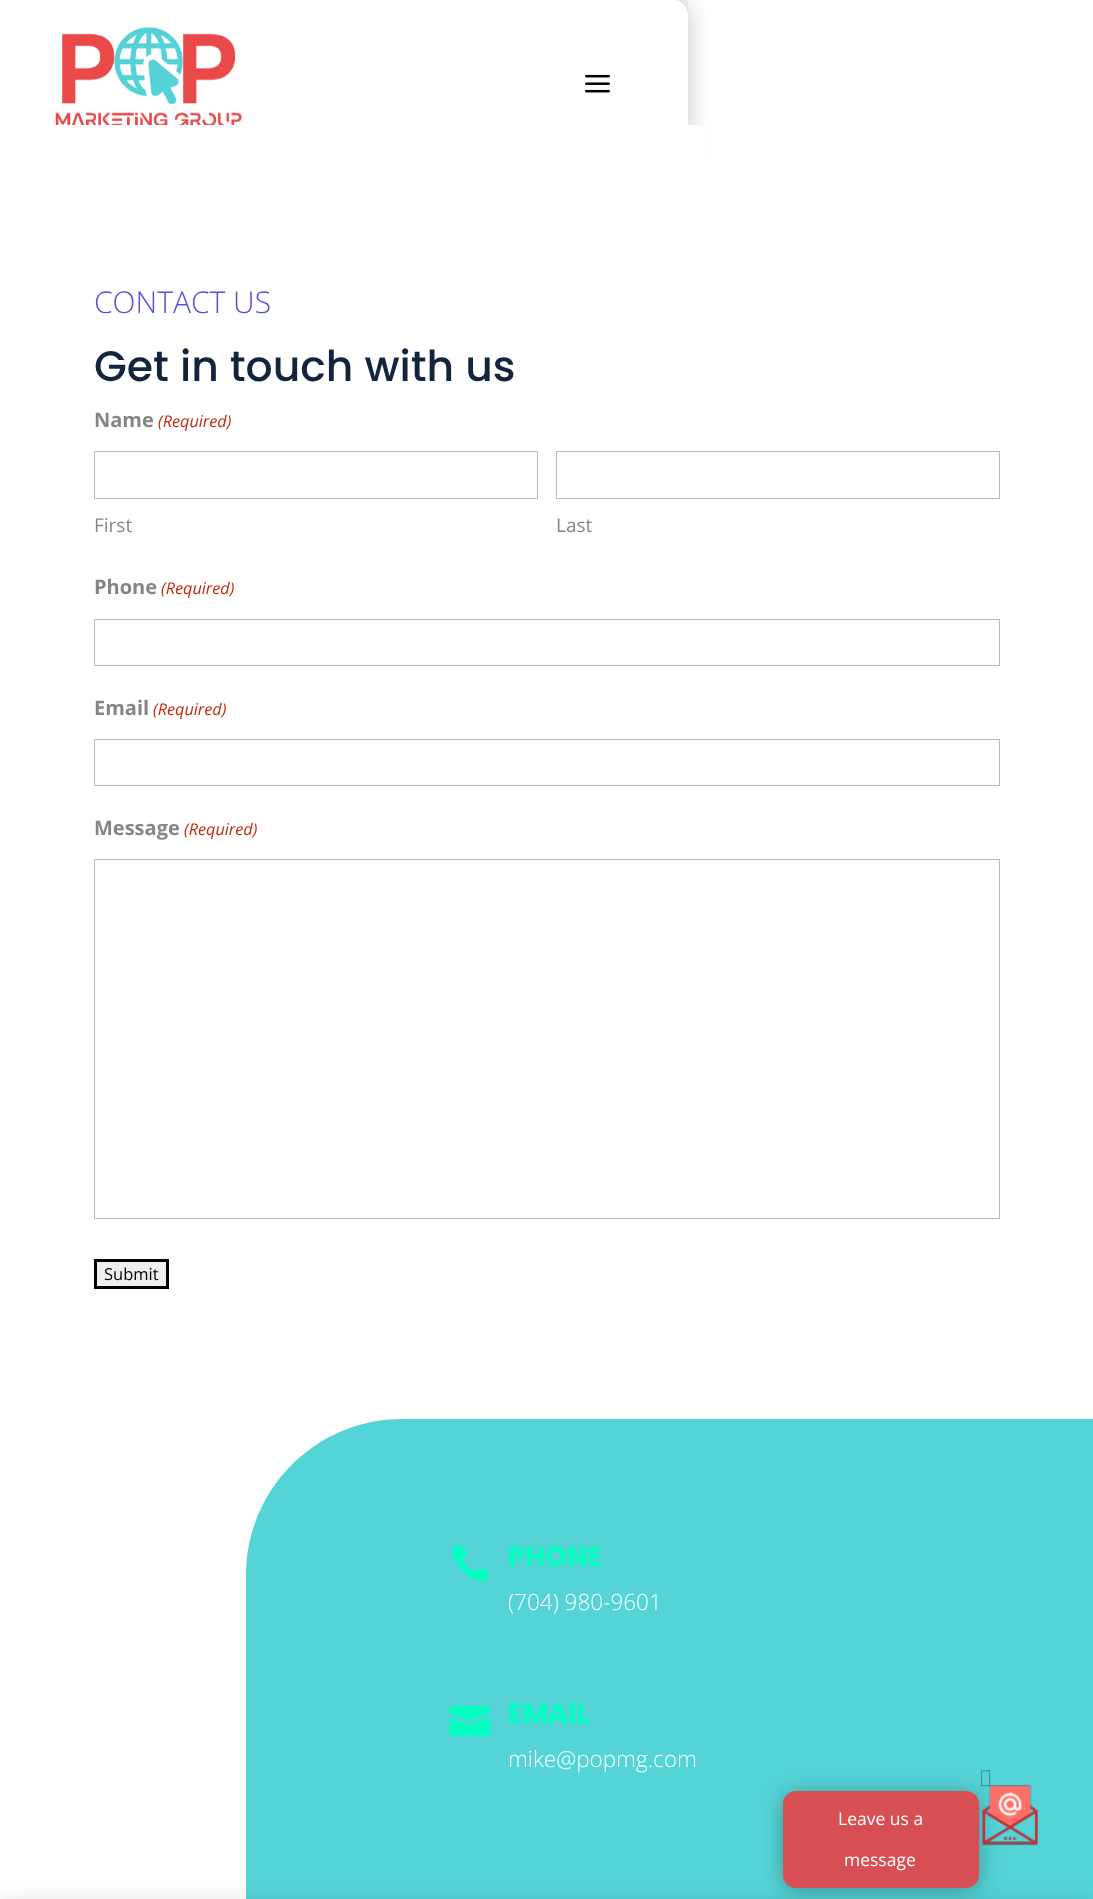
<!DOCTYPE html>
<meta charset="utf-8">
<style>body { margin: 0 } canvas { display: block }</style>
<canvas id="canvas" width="1093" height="1899"></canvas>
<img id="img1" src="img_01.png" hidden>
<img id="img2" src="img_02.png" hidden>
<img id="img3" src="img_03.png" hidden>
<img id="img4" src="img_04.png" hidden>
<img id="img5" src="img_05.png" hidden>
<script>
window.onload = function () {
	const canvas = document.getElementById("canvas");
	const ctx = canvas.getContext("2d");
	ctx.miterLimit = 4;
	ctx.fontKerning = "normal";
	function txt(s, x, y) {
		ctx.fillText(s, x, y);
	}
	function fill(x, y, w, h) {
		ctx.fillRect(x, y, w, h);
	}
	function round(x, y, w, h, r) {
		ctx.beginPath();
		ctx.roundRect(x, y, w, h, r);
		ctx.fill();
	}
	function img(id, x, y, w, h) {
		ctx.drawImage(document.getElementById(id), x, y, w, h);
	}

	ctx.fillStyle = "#FFFFFF";
	fill(0, 0, 1093, 1899);
	ctx.fillStyle = "#F2F2F2";
	fill(673, 0, 15, 15);
	ctx.fillStyle = "rgba(0, 0, 0, 0.15)";
	ctx.filter = "blur(9.5px)";
	ctx.beginPath();
	ctx.roundRect(3, 3, 690, 165, 16);
	ctx.fill();
	ctx.filter = "none";
	ctx.fillStyle = "#FFFFFF";
	ctx.beginPath();
	ctx.roundRect(0, 0, 688, 163, [0, 15, 15, 0]);
	ctx.fill();
	img("img1", 55, 27, 187, 98);
	img("img2", 585, 74, 25, 19);
	fill(0, 125, 707, 57);
	ctx.strokeStyle = "#BBBBBB";
	ctx.strokeRect(94.5, 451.5, 443, 47);
	ctx.strokeRect(556.5, 451.5, 443, 47);
	ctx.strokeRect(94.5, 619.5, 905, 46);
	ctx.strokeRect(94.5, 739.5, 905, 46);
	ctx.strokeRect(94.5, 859.5, 905, 359);
	ctx.fillStyle = "#EFEFEF";
	ctx.beginPath();
	ctx.rect(95.5, 1260.5, 72, 27);
	ctx.fill();
	ctx.strokeStyle = "#000000";
	ctx.lineWidth = 3;
	ctx.stroke();
	ctx.fillStyle = "#55D4D8";
	ctx.beginPath();
	ctx.moveTo(402, 1419);
	ctx.lineTo(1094, 1419);
	ctx.lineTo(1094, 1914);
	ctx.lineTo(246, 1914);
	ctx.lineTo(246, 1575);
	ctx.bezierCurveTo(246, 1489, 316, 1419, 402, 1419);
	ctx.closePath();
	ctx.fill();
	img("img3", 451, 1545, 38, 37);
	ctx.fillStyle = "#01FFC0";
	ctx.beginPath();
	ctx.moveTo(488, 1706);
	ctx.lineTo(452, 1706);
	ctx.bezierCurveTo(449, 1706, 450, 1711, 450, 1713);
	ctx.lineTo(470, 1721);
	ctx.lineTo(490, 1713);
	ctx.bezierCurveTo(490, 1711, 491, 1706, 488, 1706);
	ctx.closePath();
	ctx.moveTo(450, 1717);
	ctx.bezierCurveTo(450, 1741, 445, 1736, 470, 1736);
	ctx.bezierCurveTo(495, 1736, 490, 1741, 490, 1717);
	ctx.lineTo(470, 1725);
	ctx.closePath();
	ctx.fill();
	img("img4", 980, 1770, 11, 17);
	ctx.fillStyle = "rgba(0, 0, 0, 0.3)";
	ctx.filter = "blur(11px)";
	ctx.beginPath();
	ctx.roundRect(783, 1794, 196, 96, 13);
	ctx.fill();
	ctx.filter = "none";
	ctx.fillStyle = "rgba(0, 0, 0, 0.12)";
	ctx.filter = "blur(11px)";
	ctx.beginPath();
	ctx.roundRect(0, 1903, 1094, 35, 6);
	ctx.fill();
	ctx.filter = "none";
	ctx.fillStyle = "#D84F53";
	round(783, 1791, 196, 97, 13);
	img("img5", 982, 1784, 56, 62);
	ctx.font = "300 30px Open Sans";
	ctx.fillStyle = "#5252D8";
	txt("CONTACT US", 94, 313);
	ctx.font = "500 42.5px Poppins";
	ctx.fillStyle = "#13243D";
	txt("Get in touch with us", 94, 381);
	ctx.font = "bold 20px Open Sans";
	ctx.fillStyle = "#858585";
	txt("Name", 94, 427);
	ctx.font = "italic 16.25px Open Sans";
	ctx.fillStyle = "#C02B0A";
	txt("(Required)", 158, 427);
	ctx.font = "19px Open Sans";
	ctx.fillStyle = "#858585";
	txt("First", 94, 532);
	txt("Last", 556, 532);
	ctx.font = "bold 20px Open Sans";
	txt("Phone", 94, 594);
	ctx.font = "italic 16.25px Open Sans";
	ctx.fillStyle = "#C02B0A";
	txt("(Required)", 161, 594);
	ctx.font = "bold 20px Open Sans";
	ctx.fillStyle = "#858585";
	txt("Email", 94, 715);
	ctx.font = "italic 16.25px Open Sans";
	ctx.fillStyle = "#C02B0A";
	txt("(Required)", 153, 715);
	ctx.font = "bold 20px Open Sans";
	ctx.fillStyle = "#858585";
	txt("Message", 94, 835);
	ctx.font = "italic 16.25px Open Sans";
	ctx.fillStyle = "#C02B0A";
	txt("(Required)", 184, 835);
	ctx.font = "16.5px Open Sans";
	ctx.fillStyle = "#000000";
	txt("Submit", 104, 1280);
	ctx.font = "bold 27.5px Poppins";
	ctx.fillStyle = "#01FFC0";
	txt("PHONE", 508, 1566);
	ctx.font = "300 22.5px Open Sans";
	ctx.fillStyle = "#FFFFFF";
	txt("(704) 980-9601", 508, 1610);
	ctx.font = "bold 27.5px Poppins";
	ctx.fillStyle = "#01FFC0";
	txt("EMAIL", 508, 1723);
	ctx.font = "300 22.5px Open Sans";
	ctx.fillStyle = "#FFFFFF";
	txt("mike@popmg.com", 508, 1767);
	ctx.font = "17.5px Open Sans";
	txt("Leave us a", 838, 1825);
	txt("message", 844, 1866);
};
</script>
